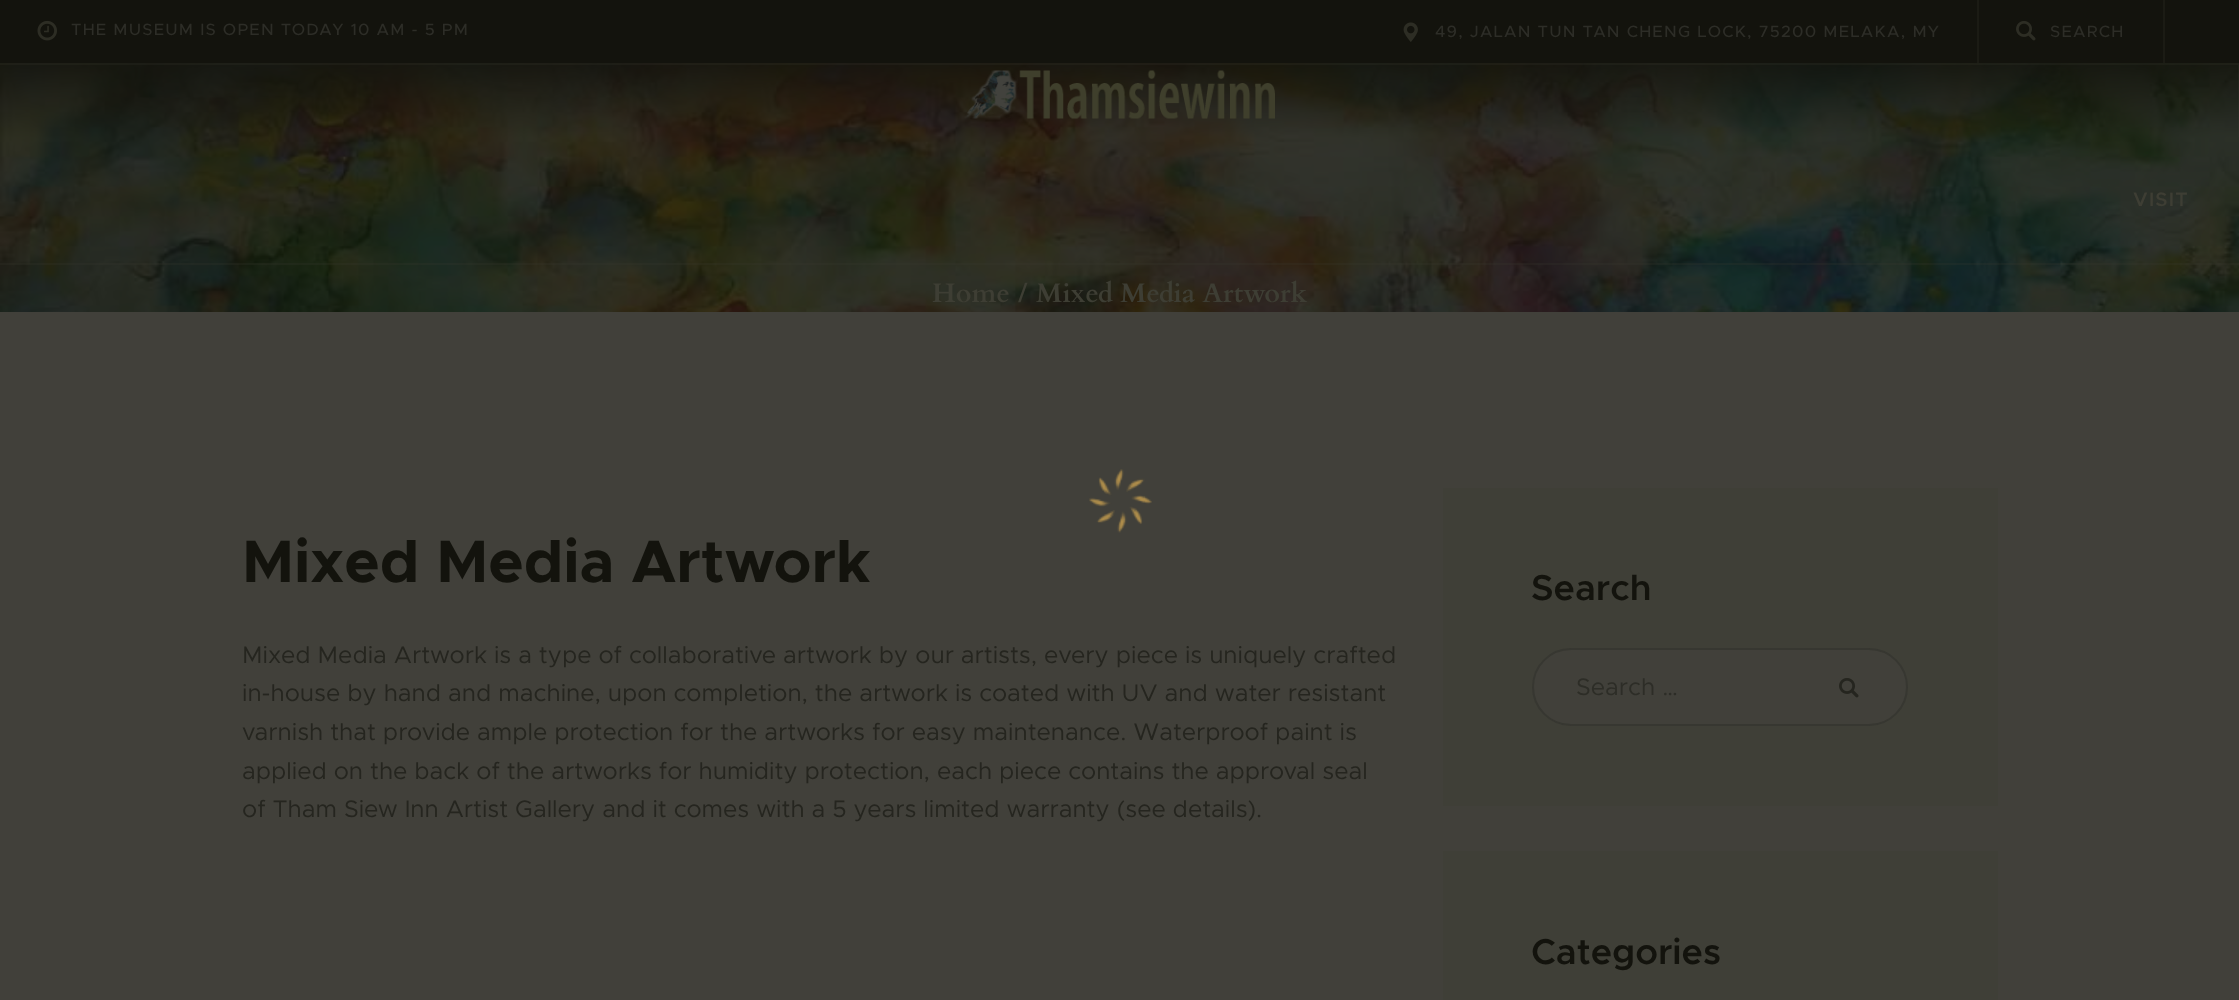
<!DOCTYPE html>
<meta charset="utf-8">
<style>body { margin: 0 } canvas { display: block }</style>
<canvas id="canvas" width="2239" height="1000"></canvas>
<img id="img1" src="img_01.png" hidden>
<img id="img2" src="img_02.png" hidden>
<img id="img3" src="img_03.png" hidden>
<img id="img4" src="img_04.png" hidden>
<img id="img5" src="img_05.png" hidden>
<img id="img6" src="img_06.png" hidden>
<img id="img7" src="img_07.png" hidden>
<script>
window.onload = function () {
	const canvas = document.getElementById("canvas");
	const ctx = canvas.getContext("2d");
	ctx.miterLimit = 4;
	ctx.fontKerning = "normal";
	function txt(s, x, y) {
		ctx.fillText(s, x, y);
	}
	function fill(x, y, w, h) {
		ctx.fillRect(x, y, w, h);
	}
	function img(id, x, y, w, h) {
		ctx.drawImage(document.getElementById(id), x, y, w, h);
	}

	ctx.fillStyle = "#41403A";
	fill(0, 0, 2239, 1000);
	ctx.fillStyle = "#13130D";
	fill(0, 0, 2239, 63);
	img("img1", 37, 20, 20, 21);
	img("img2", 1403, 22, 15, 20);
	ctx.fillStyle = "#1B1B14";
	fill(2163, 0, 2, 63);
	fill(1977, 0, 2, 63);
	img("img3", 2016, 21, 20, 20);
	img("img4", 0, 63, 2239, 249);
	ctx.fillStyle = "rgba(62, 62, 52, 0.2)";
	fill(0, 63, 2239, 2);
	fill(0, 263, 2239, 2);
	img("img5", 964, 70, 311, 49);
	fill(2238, 65, 1, 72);
	ctx.fillStyle = "#3F3F37";
	fill(1443, 488, 555, 318);
	ctx.fillStyle = "#41403A";
	ctx.beginPath();
	ctx.roundRect(1533, 649, 374, 76, 38);
	ctx.fill();
	ctx.strokeStyle = "#373731";
	ctx.lineWidth = 2;
	ctx.stroke();
	img("img6", 1839, 678, 20, 20);
	ctx.fillStyle = "#3F3F37";
	fill(1443, 851, 555, 149);
	img("img7", 1089, 469, 63, 64);
	ctx.letterSpacing = "1.2px";
	ctx.font = "500 16.5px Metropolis";
	ctx.fillStyle = "#2D2D27";
	txt("THE MUSEUM IS OPEN TODAY 10 AM - 5 PM", 71, 35);
	txt("49, JALAN TUN TAN CHENG LOCK, 75200 MELAKA, MY", 1435, 37);
	txt("SEARCH", 2050, 37);
	ctx.font = "600 19.5px Metropolis";
	ctx.fillStyle = "#3E3E34";
	txt("VISIT", 2133, 206);
	ctx.letterSpacing = "0px";
	ctx.font = "bold 27px Cardo";
	txt("Home", 932, 302);
	txt("/", 1018, 302);
	txt("Mixed Media Artwork", 1036, 302);
	ctx.font = "bold 60px Metropolis";
	ctx.fillStyle = "#13130D";
	txt("Mixed Media Artwork", 242, 582);
	ctx.font = "24px Metropolis";
	ctx.fillStyle = "#25251F";
	txt("Mixed Media Artwork is a type of collaborative artwork by our artists, every piece is uniquely crafted", 242, 663);
	txt("in-house by hand and machine, upon completion, the artwork is coated with UV and water resistant", 242, 701);
	txt("varnish that provide ample protection for the artworks for easy maintenance. Waterproof paint is", 242, 740);
	txt("applied on the back of the artworks for humidity protection, each piece contains the approval seal", 242, 779);
	txt("of Tham Siew Inn Artist Gallery and it comes with a 5 years limited warranty (see details).", 242, 817);
	ctx.font = "600 36px Metropolis";
	ctx.fillStyle = "#13130D";
	txt("Search", 1531, 600);
	ctx.font = "24px Metropolis";
	ctx.fillStyle = "#2D2D27";
	txt("Search …", 1576, 695);
	ctx.font = "600 36px Metropolis";
	ctx.fillStyle = "#13130D";
	txt("Categories", 1531, 964);
};
</script>
